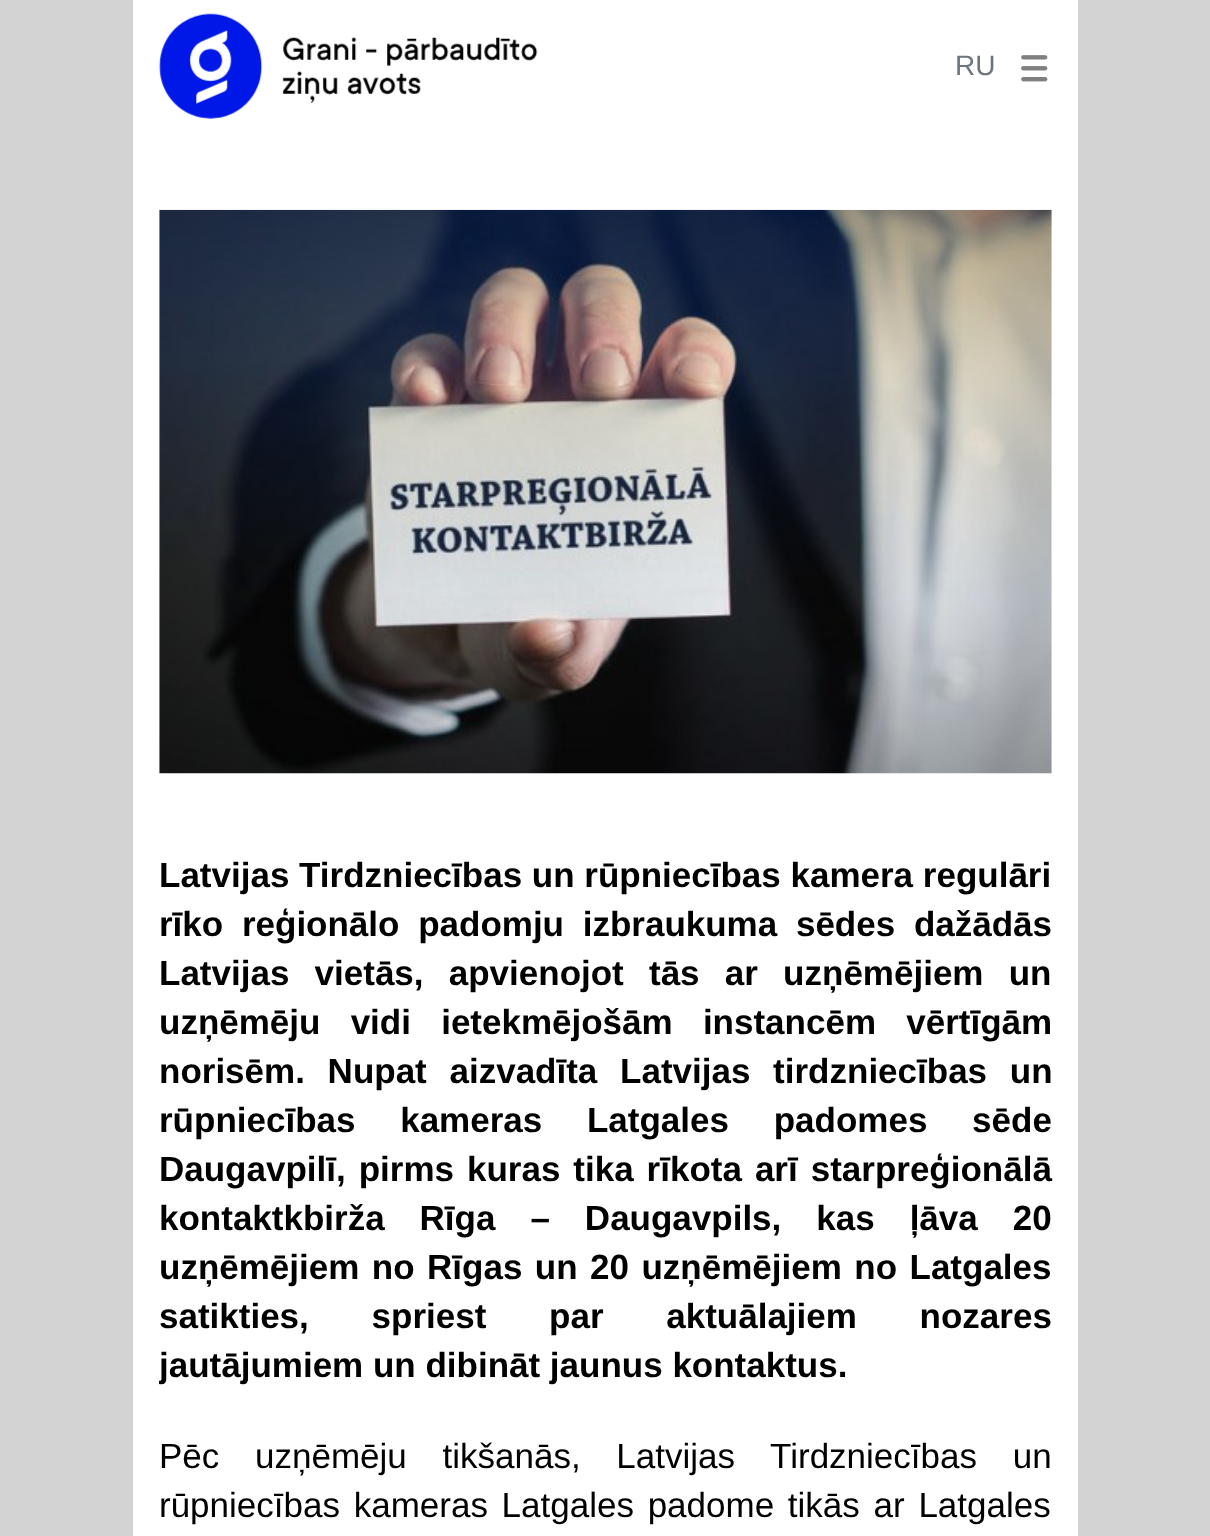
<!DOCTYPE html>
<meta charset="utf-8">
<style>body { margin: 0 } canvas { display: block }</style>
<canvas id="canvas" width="1210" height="1536"></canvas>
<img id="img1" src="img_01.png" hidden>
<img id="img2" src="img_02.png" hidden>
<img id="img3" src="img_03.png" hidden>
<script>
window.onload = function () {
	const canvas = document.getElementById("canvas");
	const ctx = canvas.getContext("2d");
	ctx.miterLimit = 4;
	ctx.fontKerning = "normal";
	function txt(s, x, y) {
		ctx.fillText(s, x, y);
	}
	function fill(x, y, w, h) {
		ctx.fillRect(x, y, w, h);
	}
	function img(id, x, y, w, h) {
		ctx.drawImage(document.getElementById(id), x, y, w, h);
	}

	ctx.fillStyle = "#D3D3D3";
	fill(0, 0, 1210, 1536);
	ctx.fillStyle = "#FFFFFF";
	fill(133, 0, 945, 1536);
	img("img1", 159, 13, 379, 106);
	img("img2", 1021, 55, 27, 27);
	img("img3", 159, 209, 893, 565);
	ctx.font = "28px Liberation Sans";
	ctx.fillStyle = "#6C757D";
	txt("RU", 955, 75);
	ctx.font = "bold 35px Liberation Sans";
	ctx.fillStyle = "#000000";
	txt("Latvijas Tirdzniecības un rūpniecības kamera regulāri", 159, 887);
	ctx.wordSpacing = "9px";
	txt("rīko reģionālo padomju izbraukuma sēdes dažādās", 159, 936);
	ctx.wordSpacing = "15.5px";
	txt("Latvijas vietās, apvienojot tās ar uzņēmējiem un", 159, 985);
	ctx.wordSpacing = "20.5px";
	txt("uzņēmēju vidi ietekmējošām instancēm vērtīgām", 159, 1034);
	ctx.wordSpacing = "13px";
	txt("norisēm. Nupat aizvadīta Latvijas tirdzniecības un", 159, 1083);
	ctx.wordSpacing = "35px";
	txt("rūpniecības kameras Latgales padomes sēde", 159, 1132);
	ctx.wordSpacing = "3.25px";
	txt("Daugavpilī, pirms kuras tika rīkota arī starpreģionālā", 159, 1181);
	ctx.wordSpacing = "25.25px";
	txt("kontaktkbirža Rīga – Daugavpils, kas ļāva 20", 159, 1230);
	ctx.wordSpacing = "2.75px";
	txt("uzņēmējiem no Rīgas un 20 uzņēmējiem no Latgales", 159, 1279);
	ctx.wordSpacing = "53px";
	txt("satikties, spriest par aktuālajiem nozares", 159, 1328);
	ctx.save();
	ctx.beginPath();
	ctx.rect(159, 210, 893, 1180);
	ctx.clip();
	ctx.wordSpacing = "0px";
	txt("jautājumiem un dibināt jaunus kontaktus.", 159, 1377);
	ctx.restore();
	ctx.wordSpacing = "26px";
	ctx.font = "35px Liberation Sans";
	txt("Pēc uzņēmēju tikšanās, Latvijas Tirdzniecības un", 159, 1468);
	ctx.wordSpacing = "4px";
	txt("rūpniecības kameras Latgales padome tikās ar Latgales", 159, 1517);
};
</script>
